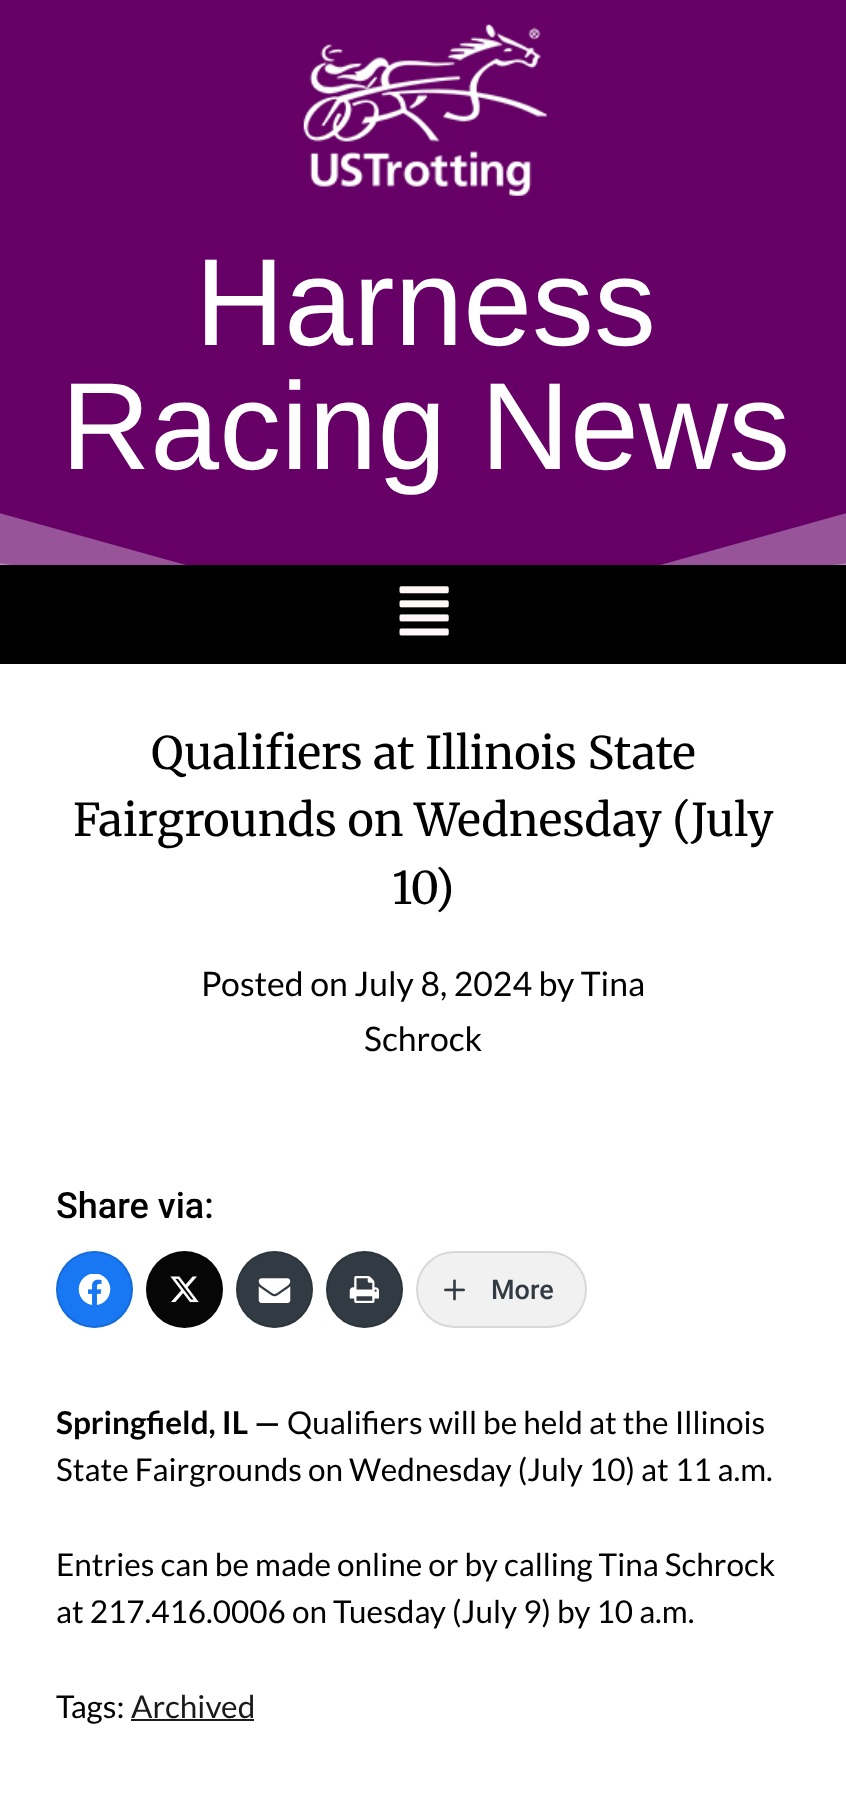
<!DOCTYPE html>
<meta charset="utf-8">
<style>body { margin: 0 } canvas { display: block }</style>
<canvas id="canvas" width="846" height="1802"></canvas>
<img id="img1" src="img_01.png" hidden>
<img id="img2" src="img_02.png" hidden>
<img id="img3" src="img_03.png" hidden>
<img id="img4" src="img_04.png" hidden>
<img id="img5" src="img_05.png" hidden>
<img id="img6" src="img_06.png" hidden>
<img id="img7" src="img_07.png" hidden>
<script>
window.onload = function () {
	const canvas = document.getElementById("canvas");
	const ctx = canvas.getContext("2d");
	ctx.miterLimit = 4;
	ctx.fontKerning = "normal";
	function txt(s, x, y) {
		ctx.fillText(s, x, y);
	}
	function fill(x, y, w, h) {
		ctx.fillRect(x, y, w, h);
	}
	function round(x, y, w, h, r) {
		ctx.beginPath();
		ctx.roundRect(x, y, w, h, r);
		ctx.fill();
	}
	function img(id, x, y, w, h) {
		ctx.drawImage(document.getElementById(id), x, y, w, h);
	}

	ctx.fillStyle = "#FFFFFF";
	fill(0, 0, 846, 1802);
	ctx.fillStyle = "#660066";
	fill(0, 0, 846, 565);
	img("img1", 303, 24, 244, 172);
	ctx.fillStyle = "#985498";
	ctx.beginPath();
	ctx.moveTo(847, 664);
	ctx.lineTo(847, 513);
	ctx.lineTo(423, 631);
	ctx.lineTo(-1, 513);
	ctx.lineTo(-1, 664);
	ctx.closePath();
	ctx.fill();
	ctx.fillStyle = "#BA8CBA";
	ctx.beginPath();
	ctx.moveTo(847, 664);
	ctx.lineTo(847, 563);
	ctx.lineTo(423, 632);
	ctx.lineTo(-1, 563);
	ctx.lineTo(-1, 664);
	ctx.closePath();
	ctx.fill();
	ctx.fillStyle = "#000000";
	fill(0, 565, 846, 99);
	img("img2", 399, 586, 50, 50);
	ctx.fillStyle = "#1877F2";
	ctx.beginPath();
	ctx.arc(94.5, 1289.5, 38.5, 0, Math.PI * 2);
	ctx.fill();
	ctx.beginPath();
	ctx.arc(94.5, 1289.5, 37.5, 0, Math.PI * 2);
	ctx.strokeStyle = "rgba(0, 0, 0, 0.1)";
	ctx.lineWidth = 2;
	ctx.stroke();
	img("img3", 78, 1274, 33, 31);
	ctx.fillStyle = "#060606";
	ctx.beginPath();
	ctx.arc(184.5, 1289.5, 38.5, 0, Math.PI * 2);
	ctx.fill();
	ctx.beginPath();
	ctx.arc(184.5, 1289.5, 37.5, 0, Math.PI * 2);
	ctx.stroke();
	img("img4", 170, 1276, 29, 27);
	ctx.fillStyle = "#323B43";
	ctx.beginPath();
	ctx.arc(274.5, 1289.5, 38.5, 0, Math.PI * 2);
	ctx.fill();
	ctx.beginPath();
	ctx.arc(274.5, 1289.5, 37.5, 0, Math.PI * 2);
	ctx.stroke();
	img("img5", 258, 1278, 33, 25);
	ctx.beginPath();
	ctx.arc(364.5, 1289.5, 38.5, 0, Math.PI * 2);
	ctx.fill();
	ctx.beginPath();
	ctx.arc(364.5, 1289.5, 37.5, 0, Math.PI * 2);
	ctx.stroke();
	img("img6", 349, 1276, 30, 27);
	ctx.fillStyle = "#F1F1F1";
	round(416, 1251, 171, 77, 38.5);
	ctx.beginPath();
	ctx.roundRect(417, 1252, 169, 75, 37.5);
	ctx.stroke();
	img("img7", 444, 1279, 21, 22);
	ctx.fillStyle = "#1A1A1A";
	fill(131, 1719, 123, 2);
	ctx.font = "123.75px Liberation Sans";
	ctx.fillStyle = "#FFFFFF";
	txt("Harness", 195, 345);
	txt("Racing News", 61, 469);
	ctx.font = "45px Merriweather";
	ctx.fillStyle = "#000000";
	txt("Qualifiers at Illinois State", 151, 769);
	txt("Fairgrounds on Wednesday (July", 73, 836);
	txt("10)", 392, 904);
	ctx.font = "33.75px Lato";
	txt("Posted on July 8, 2024 by Tina", 201, 996);
	txt("Schrock", 364, 1051);
	ctx.font = "500 36px Roboto";
	txt("Share via:", 56, 1218);
	ctx.font = "500 27px Roboto";
	ctx.fillStyle = "#323B43";
	txt("More", 491, 1299);
	ctx.font = "bold 31.5px Lato";
	ctx.fillStyle = "#000000";
	txt("Springfield, IL —", 56, 1434);
	ctx.font = "31.5px Lato";
	txt("Qualifiers will be held at the Illinois", 287, 1434);
	txt("State Fairgrounds on Wednesday (July 10) at 11 a.m.", 56, 1481);
	txt("Entries can be made online or by calling Tina Schrock", 56, 1576);
	txt("at 217.416.0006 on Tuesday (July 9) by 10 a.m.", 56, 1623);
	txt("Tags:", 56, 1718);
	ctx.fillStyle = "#1A1A1A";
	txt("Archived", 131, 1718);
};
</script>
